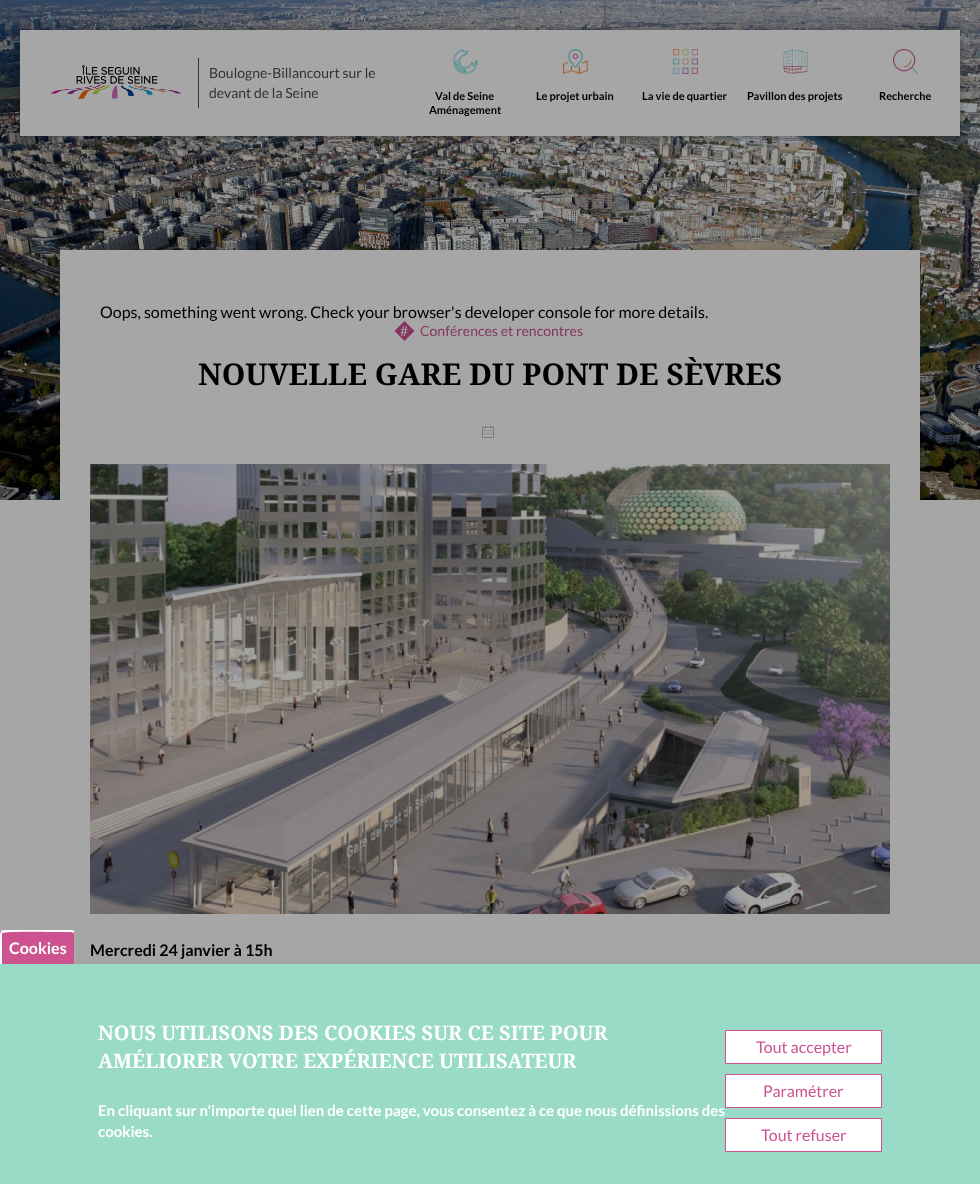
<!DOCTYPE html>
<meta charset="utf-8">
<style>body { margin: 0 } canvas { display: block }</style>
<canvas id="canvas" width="980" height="1184"></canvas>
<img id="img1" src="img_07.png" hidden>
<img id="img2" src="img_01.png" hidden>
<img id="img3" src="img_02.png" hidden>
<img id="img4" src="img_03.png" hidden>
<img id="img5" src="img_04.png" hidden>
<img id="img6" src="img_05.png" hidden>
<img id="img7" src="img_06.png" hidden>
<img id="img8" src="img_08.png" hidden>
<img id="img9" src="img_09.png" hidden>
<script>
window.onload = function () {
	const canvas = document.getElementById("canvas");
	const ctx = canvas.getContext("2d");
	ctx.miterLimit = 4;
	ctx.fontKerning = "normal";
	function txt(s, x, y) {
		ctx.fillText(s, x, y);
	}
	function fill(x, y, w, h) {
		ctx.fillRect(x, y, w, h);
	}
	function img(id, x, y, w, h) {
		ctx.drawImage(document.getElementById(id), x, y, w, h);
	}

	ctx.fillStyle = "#A6A6A6";
	fill(0, 0, 980, 1184);
	img("img1", 0, 0, 980, 500);
	ctx.fillStyle = "rgba(0, 0, 0, 0.25)";
	ctx.filter = "blur(3.5px)";
	ctx.beginPath();
	ctx.rect(18, 28, 944, 110);
	ctx.fill();
	ctx.filter = "none";
	ctx.fillStyle = "#A6A6A6";
	fill(20, 30, 940, 106);
	img("img2", 50, 64, 132, 36);
	ctx.fillStyle = "#2F3439";
	fill(198, 58, 1, 50);
	img("img3", 453, 49, 25, 25);
	img("img4", 563, 49, 25, 25);
	img("img5", 673, 49, 25, 25);
	img("img6", 783, 49, 25, 25);
	img("img7", 893, 49, 25, 25);
	ctx.fillStyle = "#A6A6A6";
	fill(60, 250, 860, 250);
	ctx.fillStyle = "#85365E";
	ctx.beginPath();
	ctx.moveTo(404.5, 321);
	ctx.lineTo(414.5, 331);
	ctx.lineTo(404.5, 341);
	ctx.lineTo(394.5, 331);
	ctx.closePath();
	ctx.fill();
	img("img8", 482, 425, 12, 13);
	img("img9", 90, 464, 800, 450);
	ctx.fillStyle = "rgba(0, 0, 0, 0.12)";
	ctx.filter = "blur(6.5px)";
	ctx.beginPath();
	ctx.rect(3, 969, 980, 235);
	ctx.fill();
	ctx.filter = "none";
	ctx.fillStyle = "#CD5390";
	ctx.beginPath();
	ctx.roundRect(0, 930, 76, 34, [5, 5, 0, 0]);
	ctx.fill();
	ctx.fillStyle = "#FFFFFF";
	ctx.beginPath();
	ctx.moveTo(5, 930);
	ctx.bezierCurveTo(4, 930, 2, 930, 1, 931);
	ctx.lineTo(3, 933);
	ctx.bezierCurveTo(5, 931, 54, 932, 60, 932);
	ctx.lineTo(71, 932);
	ctx.lineTo(73, 933);
	ctx.lineTo(75, 931);
	ctx.bezierCurveTo(74, 930, 72, 930, 71, 930);
	ctx.closePath();
	ctx.fill();
	ctx.fillStyle = "#AAAAAA";
	ctx.beginPath();
	ctx.moveTo(74, 964);
	ctx.lineTo(76, 964);
	ctx.lineTo(76, 935);
	ctx.bezierCurveTo(76, 933.5, 75.5, 932, 74.5, 931.5);
	ctx.lineTo(73, 933);
	ctx.bezierCurveTo(74, 933, 74, 934, 74, 935);
	ctx.closePath();
	ctx.fill();
	ctx.fillStyle = "#FFFFFF";
	ctx.beginPath();
	ctx.moveTo(0, 964);
	ctx.lineTo(2, 964);
	ctx.lineTo(2, 935);
	ctx.bezierCurveTo(2, 934, 2, 933, 3, 933);
	ctx.lineTo(1.5, 931.5);
	ctx.bezierCurveTo(0.5, 932, 0, 933.5, 0, 935);
	ctx.closePath();
	ctx.fill();
	ctx.fillStyle = "#99DBC7";
	fill(0, 964, 980, 220);
	ctx.fillStyle = "#FFFFFF";
	ctx.beginPath();
	ctx.rect(725.5, 1030.5, 156, 33);
	ctx.fill();
	ctx.strokeStyle = "#CD5390";
	ctx.stroke();
	ctx.beginPath();
	ctx.rect(725.5, 1074.5, 156, 33);
	ctx.fill();
	ctx.stroke();
	ctx.beginPath();
	ctx.rect(725.5, 1118.5, 156, 33);
	ctx.fill();
	ctx.stroke();
	ctx.font = "14px Lato";
	ctx.fillStyle = "#2F3439";
	txt("Boulogne-Billancourt sur le", 209, 78);
	txt("devant de la Seine", 209, 98);
	ctx.font = "bold 11px Lato";
	ctx.fillStyle = "#000000";
	txt("Val de Seine", 435, 100);
	txt("Aménagement", 429, 114);
	txt("Le projet urbain", 536, 100);
	txt("La vie de quartier", 642, 100);
	txt("Pavillon des projets", 747, 100);
	txt("Recherche", 879, 100);
	ctx.font = "16px Lato";
	txt("Oops, something went wrong. Check your browser's developer console for more details.", 100, 318);
	ctx.font = "14px Lato";
	ctx.fillStyle = "#85365E";
	txt("Conférences et rencontres", 420, 336);
	ctx.fillStyle = "#A6A6A6";
	txt("#", 400, 336);
	ctx.font = "bold 30px Droid Serif";
	ctx.fillStyle = "#000000";
	txt("NOUVELLE GARE DU PONT DE SÈVRES", 198, 385);
	ctx.font = "bold 16px Lato";
	txt("Mercredi 24 janvier à 15h", 90, 956);
	ctx.fillStyle = "#FFFFFF";
	txt("Cookies", 9, 954);
	ctx.font = "bold 20px Droid Serif";
	txt("NOUS UTILISONS DES COOKIES SUR CE SITE POUR", 98, 1040);
	txt("AMÉLIORER VOTRE EXPÉRIENCE UTILISATEUR", 98, 1068);
	ctx.font = "bold 15px Lato";
	txt("En cliquant sur n'importe quel lien de cette page, vous consentez à ce que nous définissions des", 98, 1116);
	txt("cookies.", 98, 1137);
	ctx.font = "16px Lato";
	ctx.fillStyle = "#CD5390";
	txt("Tout accepter", 756, 1053);
	txt("Paramétrer", 763, 1097);
	txt("Tout refuser", 761, 1141);
};
</script>
